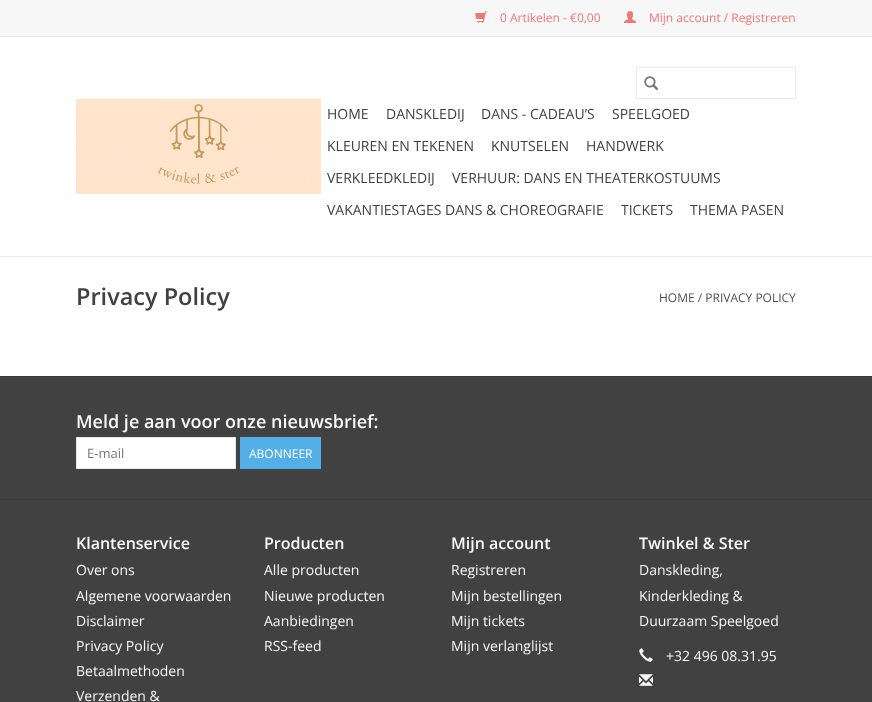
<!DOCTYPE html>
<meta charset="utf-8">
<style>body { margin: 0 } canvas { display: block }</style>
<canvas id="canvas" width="872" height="702"></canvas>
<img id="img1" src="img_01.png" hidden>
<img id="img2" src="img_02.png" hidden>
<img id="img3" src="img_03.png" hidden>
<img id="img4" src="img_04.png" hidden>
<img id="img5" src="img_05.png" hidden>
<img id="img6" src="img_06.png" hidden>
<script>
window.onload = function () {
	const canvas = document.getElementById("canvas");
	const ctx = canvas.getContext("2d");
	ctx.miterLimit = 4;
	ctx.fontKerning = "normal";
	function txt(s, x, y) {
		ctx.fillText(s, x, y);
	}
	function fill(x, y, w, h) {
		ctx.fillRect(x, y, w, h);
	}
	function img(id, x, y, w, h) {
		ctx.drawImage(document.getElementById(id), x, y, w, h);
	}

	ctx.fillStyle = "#FFFFFF";
	fill(0, 0, 872, 702);
	ctx.fillStyle = "#EAEAEA";
	fill(0, 256, 872, 1);
	ctx.fillStyle = "#F7F7F7";
	fill(0, 0, 872, 36);
	ctx.fillStyle = "#E5E5E5";
	fill(0, 36, 872, 1);
	img("img1", 475, 11, 12, 12);
	img("img2", 624, 11, 12, 12);
	img("img3", 76, 99, 245, 95);
	ctx.strokeStyle = "#EAEAEA";
	ctx.strokeRect(636.5, 67.5, 159, 31);
	img("img4", 644, 76, 15, 15);
	ctx.fillStyle = "#414141";
	fill(0, 377, 872, 325);
	ctx.fillStyle = "#3B3B3B";
	fill(0, 376, 872, 1);
	ctx.fillStyle = "#FFFFFF";
	ctx.beginPath();
	ctx.rect(76.5, 437.5, 159, 31);
	ctx.fill();
	ctx.strokeStyle = "#E9E9E9";
	ctx.stroke();
	ctx.fillStyle = "#54AFE9";
	fill(240, 437, 81, 32);
	ctx.fillStyle = "#3B3B3B";
	fill(0, 499, 872, 1);
	img("img5", 639, 648, 14, 14);
	img("img6", 639, 674, 14, 12);
	ctx.font = "12px Open Sans";
	ctx.fillStyle = "#EC7979";
	txt("0 Artikelen - €0,00", 500, 22);
	txt("Mijn account / Registreren", 649, 22);
	ctx.font = "14px Open Sans";
	ctx.fillStyle = "#414141";
	txt("HOME", 327, 119);
	txt("DANSKLEDIJ", 386, 119);
	txt("DANS - CADEAU’S", 481, 119);
	txt("SPEELGOED", 612, 119);
	txt("KLEUREN EN TEKENEN", 327, 151);
	txt("KNUTSELEN", 491, 151);
	txt("HANDWERK", 586, 151);
	txt("VERKLEEDKLEDIJ", 327, 183);
	txt("VERHUUR: DANS EN THEATERKOSTUUMS", 452, 183);
	txt("VAKANTIESTAGES DANS & CHOREOGRAFIE", 327, 215);
	txt("TICKETS", 621, 215);
	txt("THEMA PASEN", 690, 215);
	ctx.font = "600 23.5px Open Sans";
	txt("Privacy Policy", 76, 305);
	ctx.font = "12px Open Sans";
	ctx.fillStyle = "#505050";
	txt("HOME / PRIVACY POLICY", 659, 302);
	ctx.font = "600 18px Open Sans";
	ctx.fillStyle = "#F7F7F7";
	txt("Meld je aan voor onze nieuwsbrief:", 76, 428);
	ctx.font = "13px Open Sans";
	ctx.fillStyle = "#757575";
	txt("E-mail", 87, 458);
	ctx.font = "12px Open Sans";
	ctx.fillStyle = "#FFFFFF";
	txt("ABONNEER", 249, 458);
	ctx.font = "600 16px Open Sans";
	ctx.fillStyle = "#F7F7F7";
	txt("Klantenservice", 76, 549);
	ctx.font = "14px Open Sans";
	txt("Over ons", 76, 575);
	txt("Algemene voorwaarden", 76, 601);
	txt("Disclaimer", 76, 626);
	txt("Privacy Policy", 76, 651);
	txt("Betaalmethoden", 76, 676);
	txt("Verzenden &", 76, 701);
	ctx.font = "600 16px Open Sans";
	txt("Producten", 264, 549);
	ctx.font = "14px Open Sans";
	txt("Alle producten", 264, 575);
	txt("Nieuwe producten", 264, 601);
	txt("Aanbiedingen", 264, 626);
	txt("RSS-feed", 264, 651);
	ctx.font = "600 16px Open Sans";
	txt("Mijn account", 451, 549);
	ctx.font = "14px Open Sans";
	txt("Registreren", 451, 575);
	txt("Mijn bestellingen", 451, 601);
	txt("Mijn tickets", 451, 626);
	txt("Mijn verlanglijst", 451, 651);
	ctx.font = "600 16px Open Sans";
	txt("Twinkel & Ster", 639, 549);
	ctx.font = "14px Open Sans";
	txt("Danskleding,", 639, 575);
	txt("Kinderkleding &", 639, 601);
	txt("Duurzaam Speelgoed", 639, 626);
	txt("+32 496 08.31.95", 666, 661);
};
</script>
